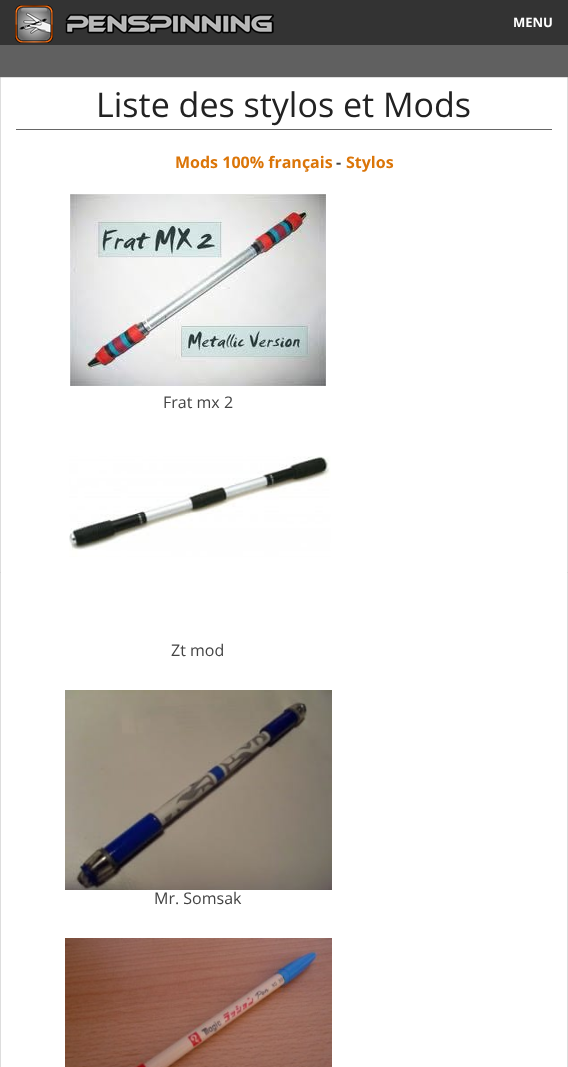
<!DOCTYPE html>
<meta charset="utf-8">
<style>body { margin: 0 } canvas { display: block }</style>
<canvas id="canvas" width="568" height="1067"></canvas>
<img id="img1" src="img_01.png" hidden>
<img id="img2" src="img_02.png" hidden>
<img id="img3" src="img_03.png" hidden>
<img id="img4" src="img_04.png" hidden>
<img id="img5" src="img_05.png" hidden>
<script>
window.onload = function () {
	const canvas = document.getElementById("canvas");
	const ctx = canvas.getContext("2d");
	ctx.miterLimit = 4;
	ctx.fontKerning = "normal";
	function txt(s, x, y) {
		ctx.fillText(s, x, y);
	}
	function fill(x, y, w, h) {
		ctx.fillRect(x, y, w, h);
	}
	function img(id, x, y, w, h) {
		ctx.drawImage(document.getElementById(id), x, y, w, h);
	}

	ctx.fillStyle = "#606060";
	fill(0, 0, 568, 1067);
	ctx.fillStyle = "#333333";
	fill(0, 0, 568, 45);
	img("img1", 15, 5, 259, 38);
	ctx.fillStyle = "#FFFFFF";
	ctx.beginPath();
	ctx.rect(0.5, 77.5, 567, 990);
	ctx.fill();
	ctx.strokeStyle = "#DDDDDD";
	ctx.stroke();
	ctx.fillStyle = "#666666";
	fill(16, 129, 536, 1);
	img("img2", 70, 194, 256, 192);
	img("img3", 69, 456, 262, 101);
	img("img4", 65, 690, 267, 200);
	img("img5", 65, 938, 267, 129);
	ctx.font = "bold 13px Open Sans";
	ctx.fillStyle = "#FFFFFF";
	txt("MENU", 513, 27);
	ctx.font = "34px Open Sans";
	ctx.fillStyle = "#222222";
	txt("Liste des stylos et Mods", 96, 117);
	ctx.font = "bold 16px Open Sans";
	ctx.fillStyle = "#DB7508";
	txt("Mods 100% français", 175, 168);
	ctx.fillStyle = "#444444";
	txt("-", 336, 168);
	ctx.fillStyle = "#DB7508";
	txt("Stylos", 346, 168);
	ctx.font = "16px Open Sans";
	ctx.fillStyle = "#444444";
	txt("Frat mx 2", 163, 408);
	txt("Zt mod", 171, 656);
	txt("Mr. Somsak", 154, 904);
};
</script>
